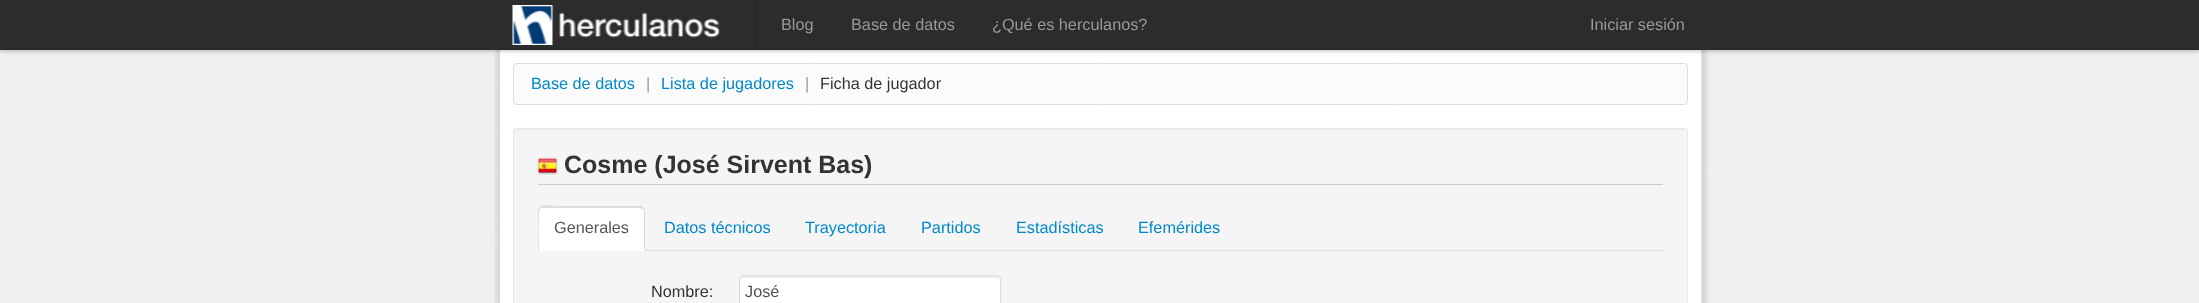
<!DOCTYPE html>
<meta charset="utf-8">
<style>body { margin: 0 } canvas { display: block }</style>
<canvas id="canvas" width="2199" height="303"></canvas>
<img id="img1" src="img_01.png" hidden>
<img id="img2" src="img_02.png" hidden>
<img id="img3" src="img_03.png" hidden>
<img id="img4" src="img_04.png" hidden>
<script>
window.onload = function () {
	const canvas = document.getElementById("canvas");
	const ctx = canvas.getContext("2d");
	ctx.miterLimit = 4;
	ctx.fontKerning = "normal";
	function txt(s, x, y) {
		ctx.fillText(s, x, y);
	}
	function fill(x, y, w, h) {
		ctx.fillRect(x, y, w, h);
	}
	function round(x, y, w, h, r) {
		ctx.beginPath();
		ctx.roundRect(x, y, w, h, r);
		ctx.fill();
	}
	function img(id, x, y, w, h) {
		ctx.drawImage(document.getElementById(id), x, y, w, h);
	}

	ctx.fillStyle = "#EFEFEF";
	fill(0, 0, 2199, 303);
	img("img1", 494, 50, 1215, 253);
	ctx.fillStyle = "rgba(0, 0, 0, 0.25)";
	ctx.filter = "blur(2px)";
	ctx.beginPath();
	ctx.rect(0, 1, 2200, 50);
	ctx.fill();
	ctx.filter = "none";
	ctx.fillStyle = "#2C2C2C";
	fill(0, 0, 2199, 49);
	ctx.fillStyle = "#282828";
	fill(0, 49, 2199, 1);
	img("img2", 512, 5, 41, 40);
	img("img3", 559, 12, 161, 26);
	ctx.fillStyle = "#222222";
	fill(755, 0, 3, 50);
	ctx.fillStyle = "#333333";
	fill(756, 0, 1, 50);
	ctx.fillStyle = "#FBFBFB";
	round(513, 63, 1175, 42, 4);
	ctx.fillStyle = "#FFFFFF";
	ctx.beginPath();
	ctx.moveTo(516, 65);
	ctx.lineTo(1684, 65);
	ctx.bezierCurveTo(1685, 65, 1686, 66, 1686, 68);
	ctx.bezierCurveTo(1686, 66, 1686, 64, 1684, 64);
	ctx.lineTo(516, 64);
	ctx.bezierCurveTo(514, 64, 514, 66, 514, 68);
	ctx.bezierCurveTo(514, 66, 515, 65, 516, 65);
	ctx.closePath();
	ctx.fill();
	ctx.beginPath();
	ctx.roundRect(513.5, 63.5, 1174, 41, 3.5);
	ctx.strokeStyle = "#DDDDDD";
	ctx.stroke();
	ctx.fillStyle = "#F5F5F5";
	round(513, 128, 1175, 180, 5);
	ctx.fillStyle = "#E9E9E9";
	ctx.beginPath();
	ctx.moveTo(518, 130);
	ctx.lineTo(1682, 130);
	ctx.bezierCurveTo(1685, 130, 1686, 132, 1686, 134);
	ctx.bezierCurveTo(1686, 131, 1685, 129, 1682, 129);
	ctx.lineTo(518, 129);
	ctx.bezierCurveTo(515, 129, 514, 131, 514, 134);
	ctx.bezierCurveTo(514, 132, 515, 130, 518, 130);
	ctx.closePath();
	ctx.fill();
	ctx.strokeStyle = "rgba(0, 0, 0, 0.05)";
	ctx.strokeRect(513.5, 128.5, 1174, 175);
	ctx.fillStyle = "#CCCCCC";
	fill(538, 184, 1125, 1);
	img("img4", 537, 157, 21, 18);
	ctx.fillStyle = "#DDDDDD";
	fill(645, 250, 1018, 1);
	ctx.fillStyle = "#FFFFFF";
	ctx.beginPath();
	ctx.roundRect(538, 206, 107, 45, [5, 5, 0, 0]);
	ctx.fill();
	ctx.fillStyle = "#DDDDDD";
	ctx.beginPath();
	ctx.moveTo(542, 208);
	ctx.lineTo(540, 209);
	ctx.lineTo(539, 208);
	ctx.bezierCurveTo(543, 203, 551, 206, 558, 206);
	ctx.lineTo(642, 206);
	ctx.lineTo(644, 208);
	ctx.lineTo(643, 209);
	ctx.lineTo(640, 208);
	ctx.closePath();
	ctx.fill();
	ctx.beginPath();
	ctx.moveTo(645, 251);
	ctx.lineTo(645, 211);
	ctx.bezierCurveTo(645, 210, 645, 208, 644, 208);
	ctx.lineTo(643, 209);
	ctx.lineTo(644, 210);
	ctx.lineTo(644, 250);
	ctx.closePath();
	ctx.fill();
	ctx.beginPath();
	ctx.moveTo(538, 251);
	ctx.lineTo(538, 211);
	ctx.bezierCurveTo(538, 210, 538, 209, 539, 208);
	ctx.lineTo(540, 209);
	ctx.bezierCurveTo(538, 210, 539, 245, 539, 250);
	ctx.closePath();
	ctx.fill();
	ctx.fillStyle = "#FFFFFF";
	round(739, 275, 262, 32, 4);
	ctx.fillStyle = "#ECECEC";
	ctx.beginPath();
	ctx.moveTo(742, 278);
	ctx.lineTo(998, 278);
	ctx.bezierCurveTo(999, 278, 1000, 279, 1000, 280);
	ctx.lineTo(1000, 278);
	ctx.bezierCurveTo(1000, 277, 999, 276, 998, 276);
	ctx.lineTo(742, 276);
	ctx.bezierCurveTo(741, 276, 740, 277, 740, 278);
	ctx.lineTo(740, 280);
	ctx.bezierCurveTo(740, 279, 741, 278, 742, 278);
	ctx.closePath();
	ctx.fill();
	ctx.beginPath();
	ctx.roundRect(739.5, 275.5, 261, 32, 3.5);
	ctx.strokeStyle = "#DDDDDD";
	ctx.stroke();
	ctx.font = "16.25px Liberation Sans";
	ctx.fillStyle = "#999999";
	txt("Blog", 781, 30);
	txt("Base de datos", 851, 30);
	txt("¿Qué es herculanos?", 992, 30);
	txt("Iniciar sesión", 1590, 30);
	ctx.fillStyle = "#0088CC";
	txt("Base de datos", 531, 89);
	ctx.fillStyle = "#999999";
	txt("|", 646, 89);
	ctx.fillStyle = "#0088CC";
	txt("Lista de jugadores", 661, 89);
	ctx.fillStyle = "#999999";
	txt("|", 805, 89);
	ctx.fillStyle = "#333333";
	txt("Ficha de jugador", 820, 89);
	ctx.font = "bold 25px Liberation Sans";
	txt("Cosme (José Sirvent Bas)", 564, 173);
	ctx.font = "16.25px Liberation Sans";
	ctx.fillStyle = "#555555";
	txt("Generales", 554, 233);
	ctx.fillStyle = "#0088CC";
	txt("Datos técnicos", 664, 233);
	txt("Trayectoria", 805, 233);
	txt("Partidos", 921, 233);
	txt("Estadísticas", 1016, 233);
	txt("Efemérides", 1138, 233);
	ctx.fillStyle = "#333333";
	txt("Nombre:", 651, 297);
	ctx.fillStyle = "#555555";
	txt("José", 745, 297);
};
</script>
